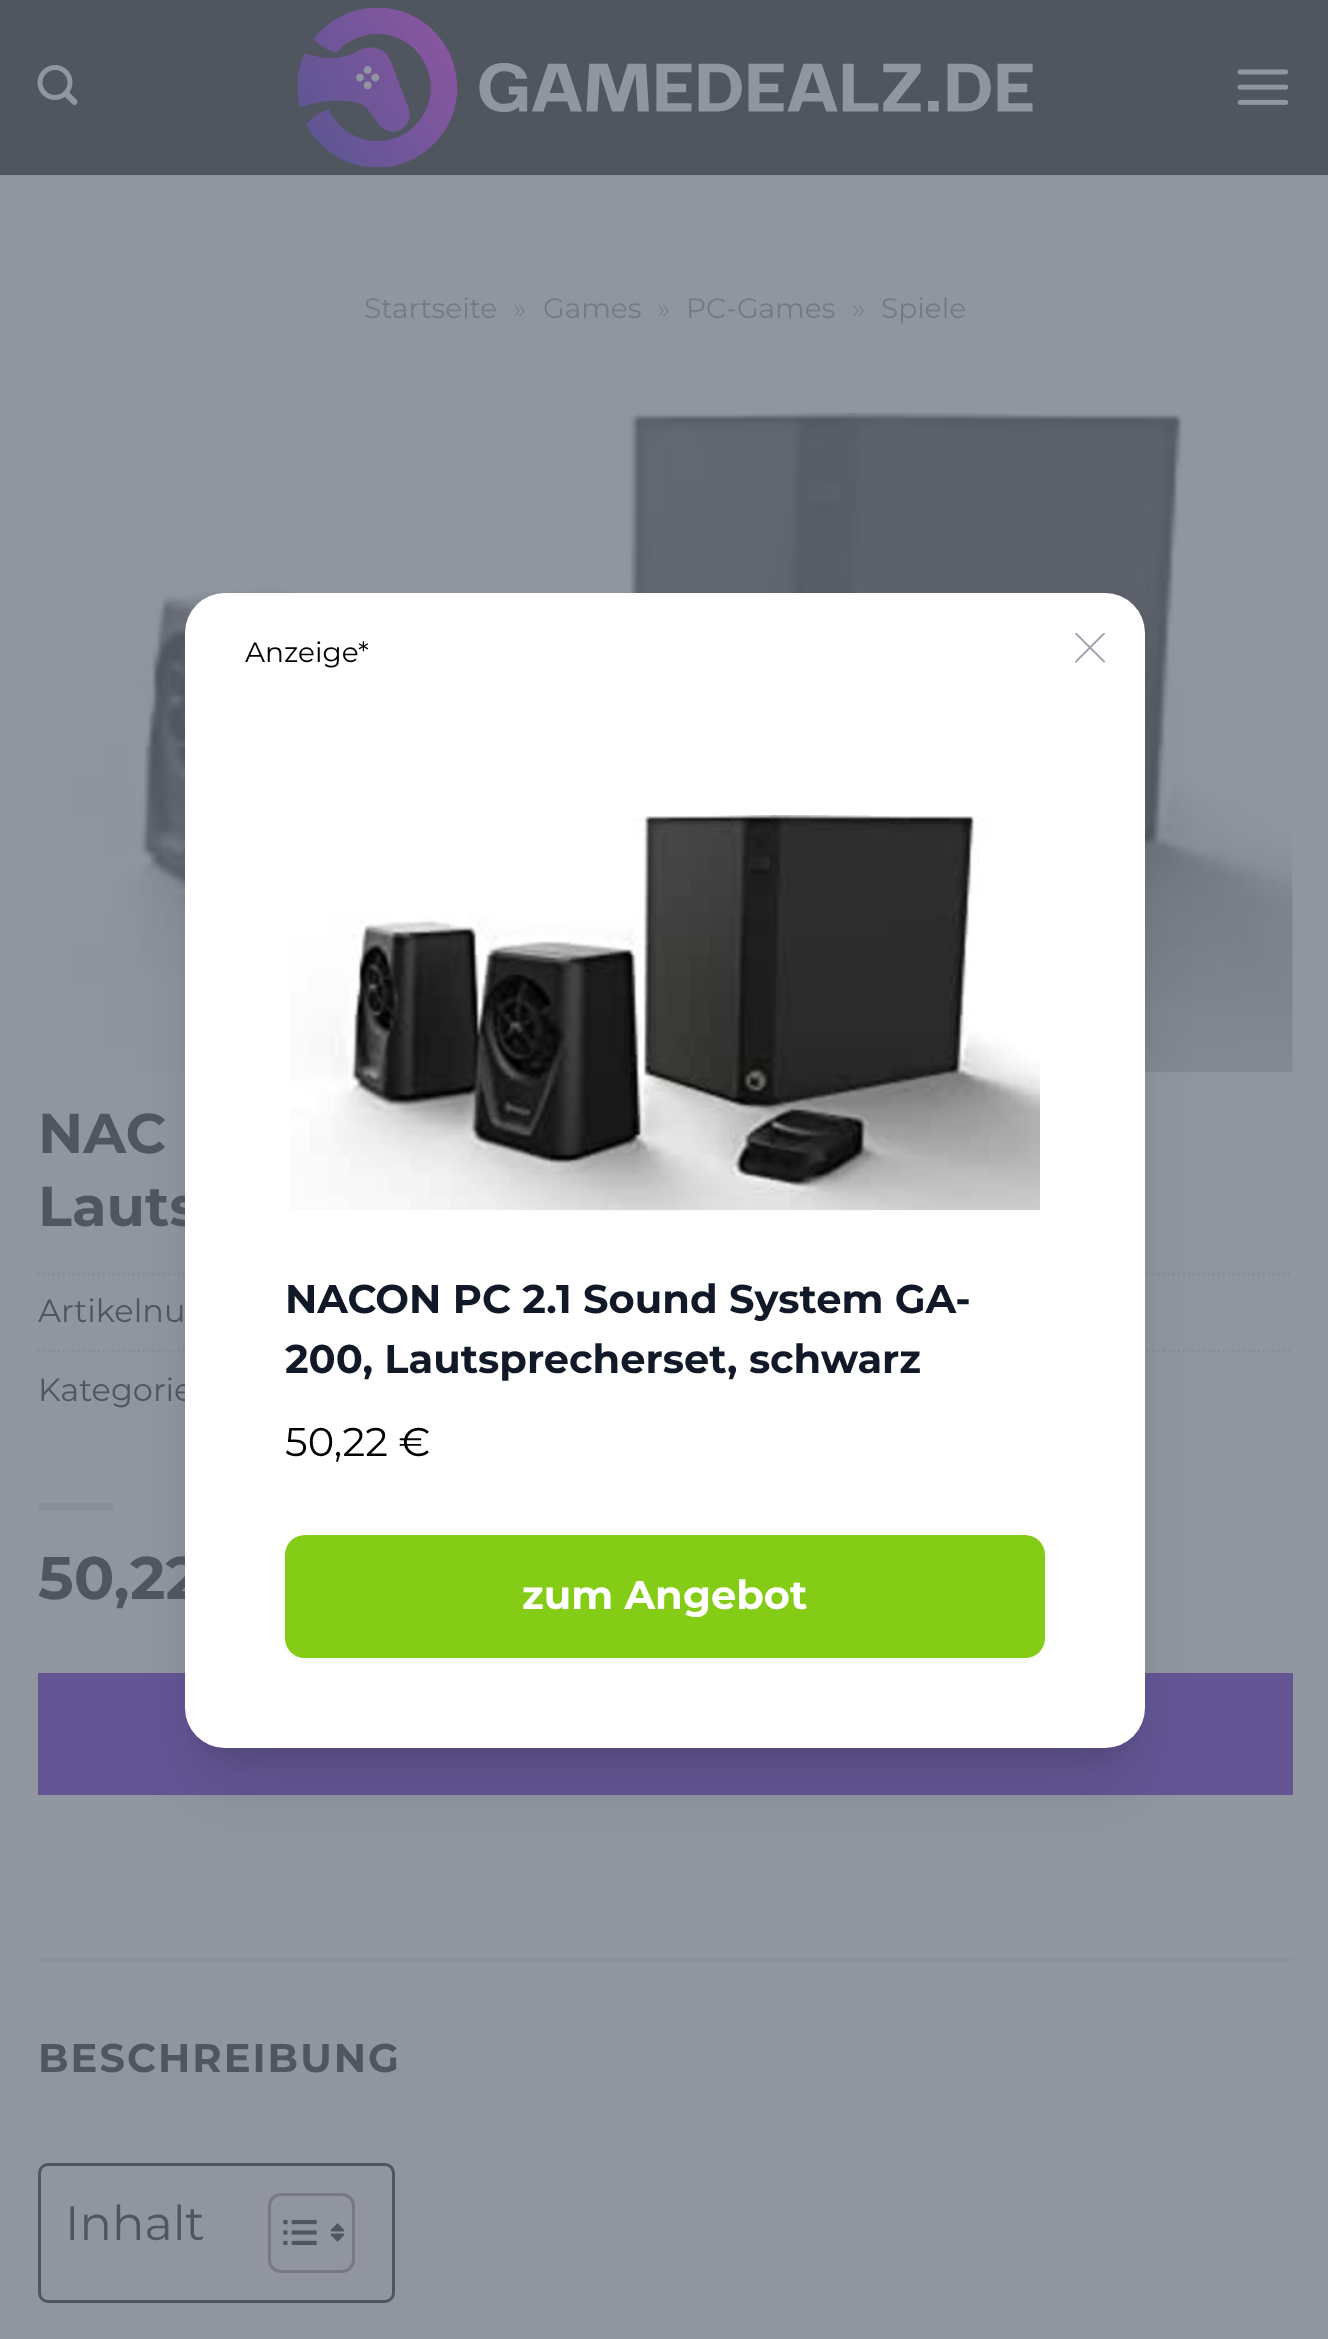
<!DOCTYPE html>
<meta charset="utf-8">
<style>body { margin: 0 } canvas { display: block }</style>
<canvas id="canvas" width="1328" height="2339"></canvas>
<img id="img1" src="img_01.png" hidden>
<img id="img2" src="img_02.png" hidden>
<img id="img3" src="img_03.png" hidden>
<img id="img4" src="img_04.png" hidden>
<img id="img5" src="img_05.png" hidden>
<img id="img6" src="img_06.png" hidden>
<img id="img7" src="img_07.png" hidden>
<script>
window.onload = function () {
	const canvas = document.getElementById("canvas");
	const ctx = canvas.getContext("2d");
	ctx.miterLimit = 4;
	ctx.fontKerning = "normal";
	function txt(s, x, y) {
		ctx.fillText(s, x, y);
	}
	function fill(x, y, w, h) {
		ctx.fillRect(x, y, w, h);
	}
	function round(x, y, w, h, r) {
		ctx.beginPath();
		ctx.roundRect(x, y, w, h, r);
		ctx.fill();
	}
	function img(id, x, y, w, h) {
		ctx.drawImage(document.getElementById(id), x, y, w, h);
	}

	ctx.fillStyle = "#9095A0";
	fill(0, 0, 1328, 2339);
	ctx.fillStyle = "#505660";
	fill(0, 0, 1328, 175);
	img("img1", 37, 65, 41, 40);
	img("img2", 297, 7, 736, 161);
	img("img3", 1237, 69, 52, 36);
	img("img4", 38, 412, 1255, 661);
	ctx.beginPath();
	ctx.moveTo(37.5, 1274);
	ctx.lineTo(1292.5, 1274);
	ctx.strokeStyle = "#888D97";
	ctx.lineWidth = 2.5;
	ctx.setLineDash([2.5, 2.5]);
	ctx.stroke();
	ctx.beginPath();
	ctx.moveTo(37.5, 1351);
	ctx.lineTo(1292.5, 1351);
	ctx.stroke();
	ctx.fillStyle = "#8A8F9A";
	fill(38, 1503, 75, 8);
	ctx.fillStyle = "#645695";
	ctx.beginPath();
	ctx.rect(39.5, 1674.5, 1252, 119);
	ctx.fill();
	ctx.strokeStyle = "#635692";
	ctx.lineWidth = 3;
	ctx.setLineDash([]);
	ctx.stroke();
	ctx.fillStyle = "#8B919B";
	fill(38, 1958, 1255, 3);
	ctx.beginPath();
	ctx.roundRect(39.5, 2164.5, 354, 137, 8.5);
	ctx.strokeStyle = "#505660";
	ctx.stroke();
	ctx.beginPath();
	ctx.roundRect(269.5, 2194.5, 84, 77, 11.5);
	ctx.strokeStyle = "#777A84";
	ctx.stroke();
	img("img5", 283, 2220, 34, 25);
	img("img6", 330, 2223, 15, 19);
	ctx.fillStyle = "rgba(0, 0, 0, 0.1)";
	ctx.filter = "blur(12.5px)";
	ctx.beginPath();
	ctx.roundRect(200, 628, 930, 1125, 25);
	ctx.fill();
	ctx.filter = "none";
	ctx.filter = "blur(31px)";
	ctx.beginPath();
	ctx.roundRect(198, 655, 935, 1130, 28);
	ctx.fill();
	ctx.filter = "none";
	ctx.font = "28px Montserrat";
	ctx.fillStyle = "#757B85";
	txt("Startseite", 364, 318);
	ctx.fillStyle = "#7D828D";
	txt("»", 513, 318);
	ctx.fillStyle = "#757B85";
	txt("Games", 543, 318);
	ctx.fillStyle = "#7D828D";
	txt("»", 657, 318);
	ctx.fillStyle = "#757B85";
	txt("PC-Games", 686, 318);
	ctx.fillStyle = "#7D828D";
	txt("»", 852, 318);
	ctx.fillStyle = "#757B85";
	txt("Spiele", 881, 318);
	ctx.font = "bold 56px Montserrat";
	ctx.fillStyle = "#505660";
	txt("NAC", 38, 1153);
	txt("Lauts", 38, 1226);
	ctx.font = "32px Montserrat";
	txt("Artikelnu", 38, 1322);
	txt("Kategorie", 38, 1401);
	ctx.font = "bold 60px Montserrat";
	txt("50,22", 38, 1599);
	ctx.letterSpacing = "2px";
	ctx.font = "bold 40px Montserrat";
	txt("BESCHREIBUNG", 38, 2072);
	ctx.letterSpacing = "0px";
	ctx.font = "48px Montserrat";
	txt("Inhalt", 65, 2240);
	ctx.fillStyle = "#FFFFFF";
	round(185, 593, 960, 1155, 40);
	ctx.font = "28px Montserrat";
	ctx.fillStyle = "#000000";
	txt("Anzeige*", 245, 662);
	ctx.save();
	ctx.beginPath();
	ctx.rect(1075, 633, 30, 30);
	ctx.clip();
	ctx.beginPath();
	ctx.moveTo(1076, 661.5);
	ctx.lineTo(1104, 633.5);
	ctx.moveTo(1076, 633.5);
	ctx.lineTo(1104, 661.5);
	ctx.strokeStyle = "#9CA3AF";
	ctx.lineWidth = 1.9;
	ctx.lineCap = "round";
	ctx.lineJoin = "round";
	ctx.stroke();
	ctx.restore();
	img("img7", 290, 815, 750, 396);
	ctx.font = "bold 40px Montserrat";
	ctx.fillStyle = "#111827";
	txt("NACON PC 2.1 Sound System GA-", 285, 1313);
	txt("200, Lautsprecherset, schwarz", 285, 1373);
	ctx.font = "40px Montserrat";
	ctx.fillStyle = "#000000";
	txt("50,22 €", 285, 1456);
	ctx.fillStyle = "rgba(0, 0, 0, 0.05)";
	ctx.filter = "blur(2.5px)";
	ctx.beginPath();
	ctx.roundRect(285, 1538, 760, 122, 20);
	ctx.fill();
	ctx.filter = "none";
	ctx.fillStyle = "#84CC16";
	round(285, 1535, 760, 123, 20);
	ctx.font = "bold 40px Montserrat";
	ctx.fillStyle = "#FFFFFF";
	txt("zum Angebot", 522, 1609);
};
</script>
